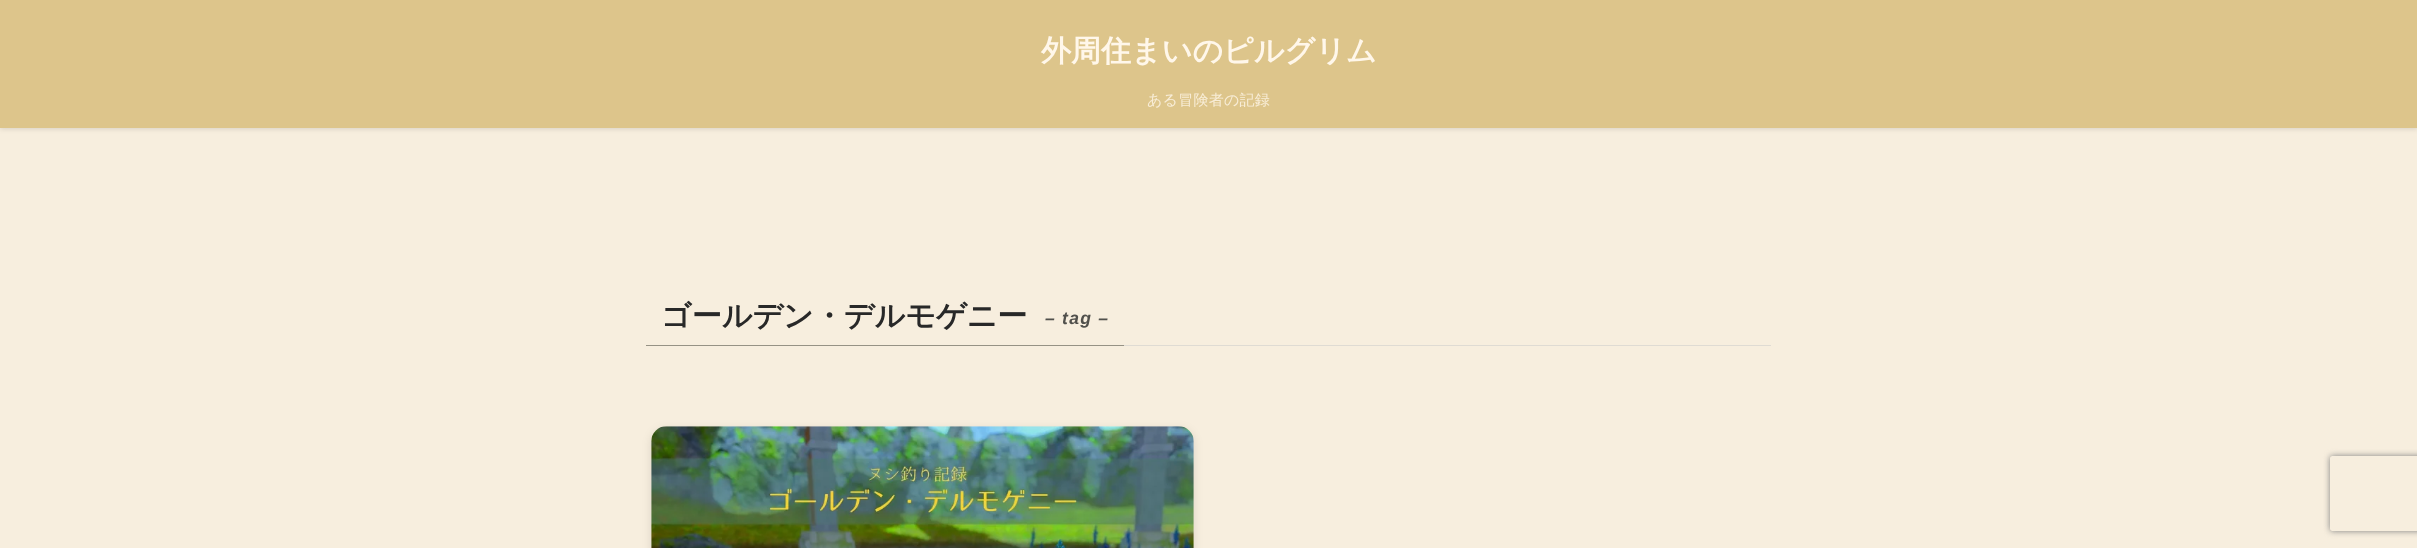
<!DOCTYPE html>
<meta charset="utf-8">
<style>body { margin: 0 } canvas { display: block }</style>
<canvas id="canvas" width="2417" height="548"></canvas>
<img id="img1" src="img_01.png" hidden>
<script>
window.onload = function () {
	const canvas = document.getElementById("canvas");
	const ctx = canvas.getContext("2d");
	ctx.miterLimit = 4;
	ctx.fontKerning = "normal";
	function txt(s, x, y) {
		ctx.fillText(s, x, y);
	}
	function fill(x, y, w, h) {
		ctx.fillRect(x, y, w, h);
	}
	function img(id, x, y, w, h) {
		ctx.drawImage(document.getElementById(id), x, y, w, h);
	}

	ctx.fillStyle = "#F7EEDE";
	fill(0, 0, 2417, 548);
	ctx.fillStyle = "rgba(0, 0, 0, 0.12)";
	ctx.filter = "blur(2.5px)";
	ctx.beginPath();
	ctx.rect(0, 1, 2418, 128);
	ctx.fill();
	ctx.filter = "none";
	ctx.fillStyle = "#DDC58B";
	fill(0, 0, 2417, 128);
	ctx.fillStyle = "#DFDBD3";
	fill(1124, 345, 647, 1);
	ctx.fillStyle = "#969285";
	fill(646, 345, 478, 1);
	ctx.fillStyle = "rgba(0, 0, 0, 0.1)";
	ctx.filter = "blur(5px)";
	ctx.beginPath();
	ctx.roundRect(651, 429, 543, 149, 15);
	ctx.fill();
	ctx.filter = "none";
	img("img1", 651, 426, 543, 122);
	ctx.save();
	ctx.beginPath();
	ctx.moveTo(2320, 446);
	ctx.lineTo(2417, 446);
	ctx.lineTo(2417, 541);
	ctx.lineTo(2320, 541);
	ctx.closePath();
	ctx.moveTo(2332.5, 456);
	ctx.lineTo(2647.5, 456);
	ctx.bezierCurveTo(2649, 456, 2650, 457, 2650, 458.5);
	ctx.lineTo(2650, 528.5);
	ctx.bezierCurveTo(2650, 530, 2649, 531, 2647.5, 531);
	ctx.lineTo(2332.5, 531);
	ctx.bezierCurveTo(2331, 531, 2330, 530, 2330, 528.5);
	ctx.lineTo(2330, 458.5);
	ctx.bezierCurveTo(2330, 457, 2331, 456, 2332.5, 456);
	ctx.closePath();
	ctx.clip("evenodd");
	ctx.fillStyle = "#808080";
	ctx.filter = "blur(3px)";
	ctx.beginPath();
	ctx.roundRect(2330, 456, 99, 75, 2.5);
	ctx.fill();
	ctx.filter = "none";
	ctx.restore();
	ctx.font = "bold 30px WenQuanYi Zen Hei";
	ctx.fillStyle = "#FFF7EA";
	txt("外周住まいのピルグリム", 1041, 61);
	ctx.letterSpacing = "0.25px";
	ctx.font = "500 15px WenQuanYi Zen Hei";
	ctx.fillStyle = "#F8EDD7";
	txt("ある冒険者の記録", 1147, 105);
	ctx.letterSpacing = "0px";
	ctx.font = "bold 30px WenQuanYi Zen Hei";
	ctx.fillStyle = "#282828";
	txt("ゴールデン・デルモゲニー", 661, 326);
	ctx.letterSpacing = "1.25px";
	ctx.font = "italic bold 17.5px Liberation Sans";
	ctx.fillStyle = "#51504C";
	txt("– tag –", 1045, 324);
};
</script>
